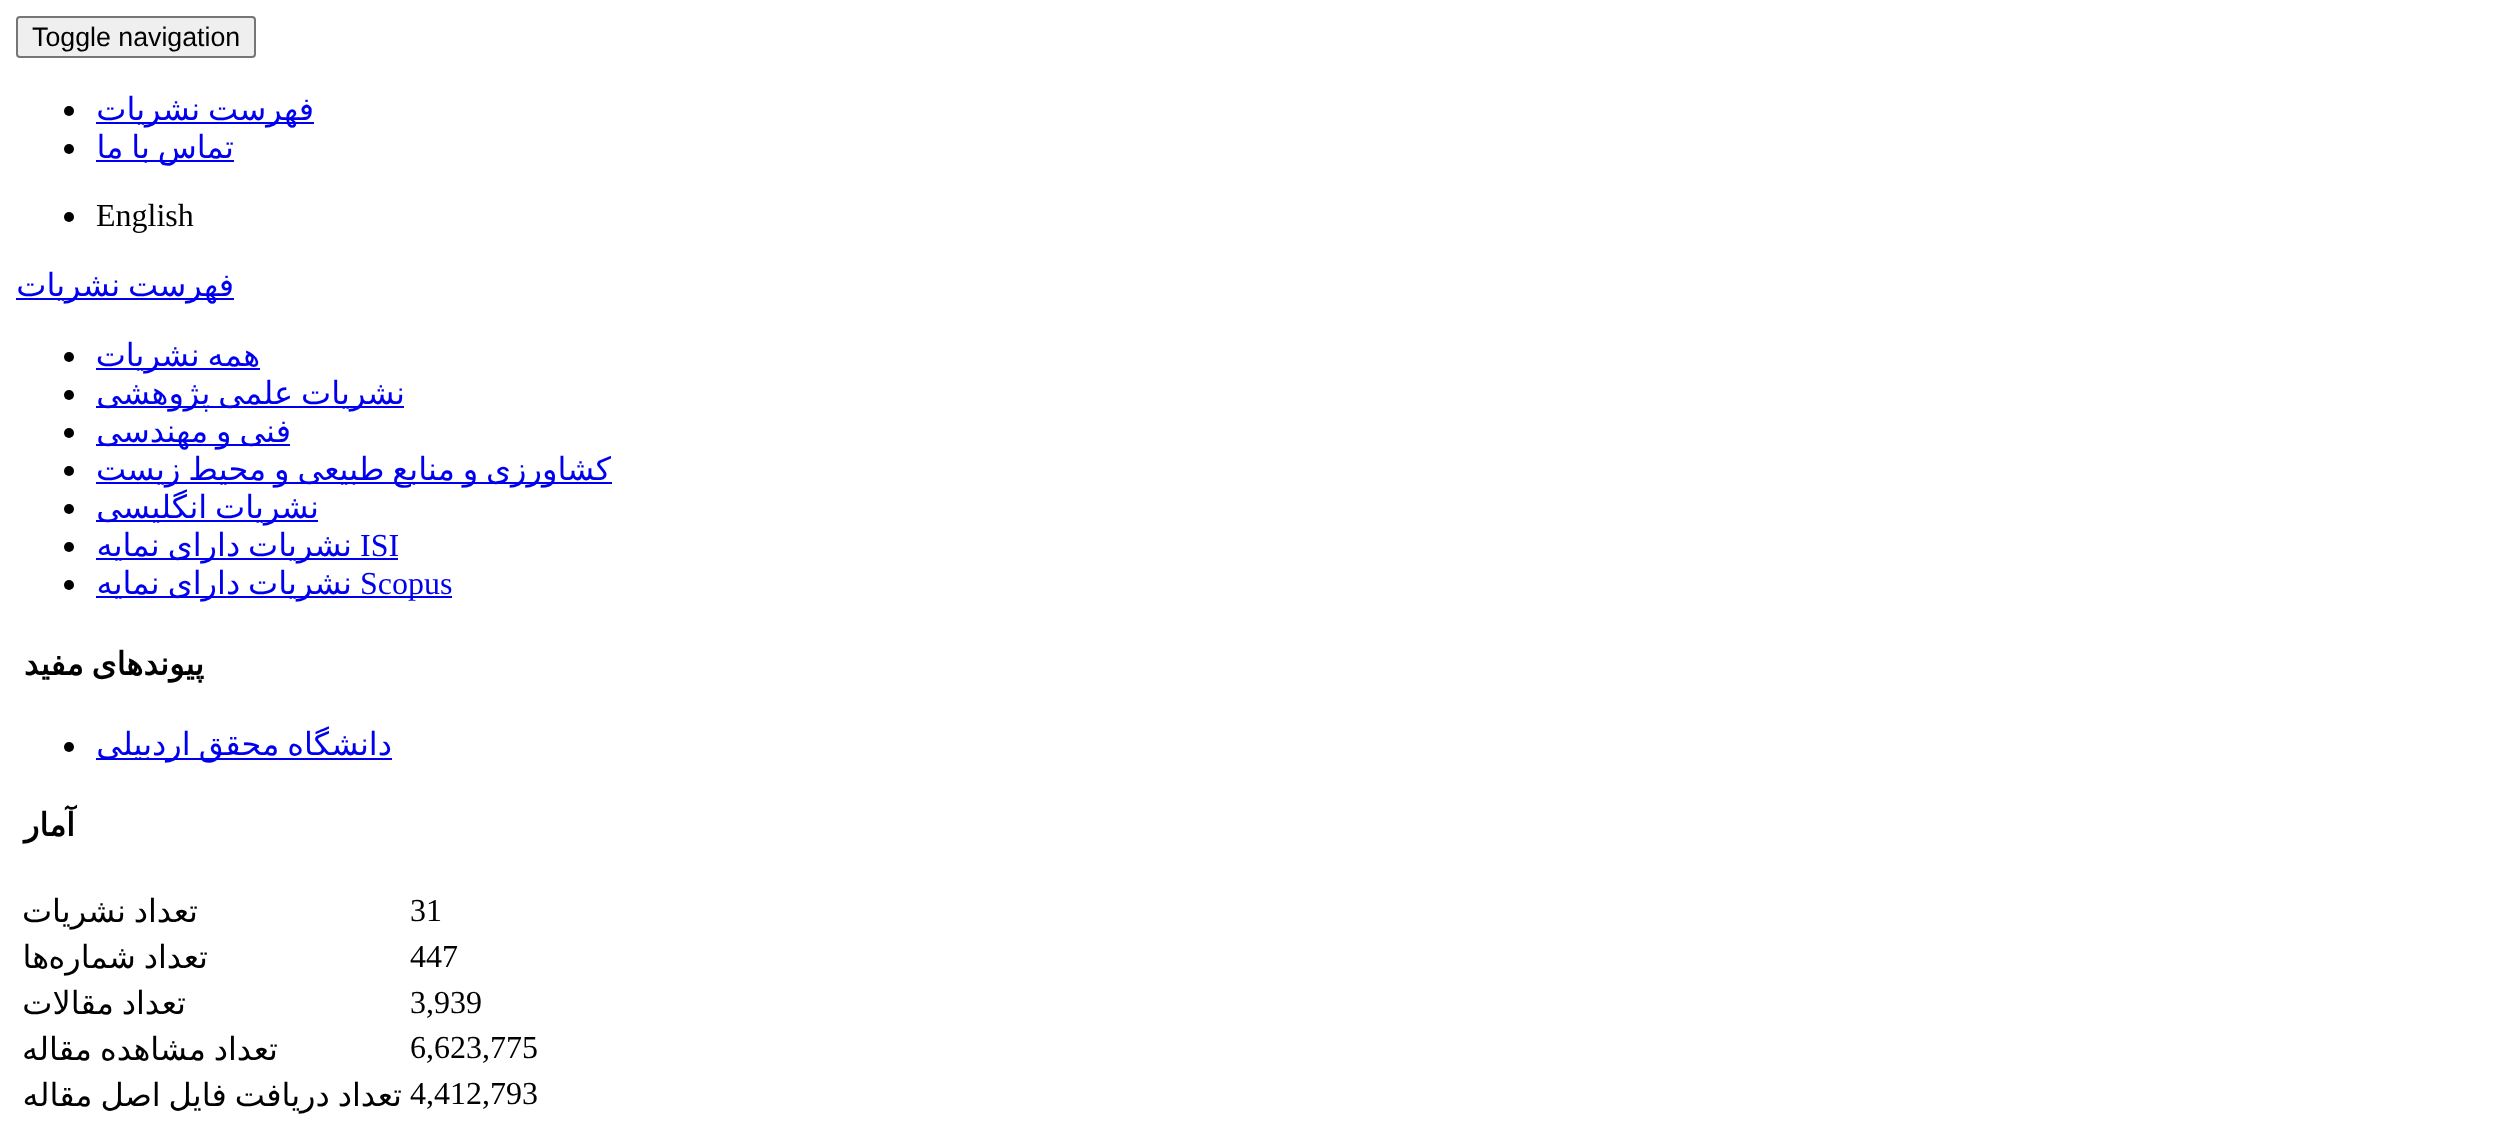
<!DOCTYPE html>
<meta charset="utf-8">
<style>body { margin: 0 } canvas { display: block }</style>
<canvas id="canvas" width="2497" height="1141"></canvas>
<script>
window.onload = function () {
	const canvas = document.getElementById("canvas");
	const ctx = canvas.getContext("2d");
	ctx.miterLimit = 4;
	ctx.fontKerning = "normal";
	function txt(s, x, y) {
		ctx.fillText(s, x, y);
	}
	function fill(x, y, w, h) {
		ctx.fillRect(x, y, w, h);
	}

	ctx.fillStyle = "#FFFFFF";
	fill(0, 0, 2497, 1141);
	ctx.fillStyle = "#EFEFEF";
	ctx.beginPath();
	ctx.roundRect(17, 17, 238, 40, 3);
	ctx.fill();
	ctx.strokeStyle = "#767676";
	ctx.lineWidth = 2;
	ctx.stroke();
	ctx.fillStyle = "#0000EE";
	fill(96, 122, 218, 2);
	ctx.fillStyle = "#000000";
	ctx.beginPath();
	ctx.arc(69, 111, 5, 0, Math.PI * 2);
	ctx.fill();
	ctx.fillStyle = "#0000EE";
	fill(96, 160, 138, 2);
	ctx.fillStyle = "#000000";
	ctx.beginPath();
	ctx.arc(69, 149, 5, 0, Math.PI * 2);
	ctx.fill();
	ctx.beginPath();
	ctx.arc(69, 217, 5, 0, Math.PI * 2);
	ctx.fill();
	ctx.fillStyle = "#0000EE";
	fill(16, 298, 218, 2);
	fill(96, 368, 164, 2);
	ctx.fillStyle = "#000000";
	ctx.beginPath();
	ctx.arc(69, 357, 5, 0, Math.PI * 2);
	ctx.fill();
	ctx.fillStyle = "#0000EE";
	fill(96, 406, 308, 2);
	ctx.fillStyle = "#000000";
	ctx.beginPath();
	ctx.arc(69, 395, 5, 0, Math.PI * 2);
	ctx.fill();
	ctx.fillStyle = "#0000EE";
	fill(96, 444, 194, 2);
	ctx.fillStyle = "#000000";
	ctx.beginPath();
	ctx.arc(69, 433, 5, 0, Math.PI * 2);
	ctx.fill();
	ctx.fillStyle = "#0000EE";
	fill(96, 482, 516, 2);
	ctx.fillStyle = "#000000";
	ctx.beginPath();
	ctx.arc(69, 471, 5, 0, Math.PI * 2);
	ctx.fill();
	ctx.fillStyle = "#0000EE";
	fill(96, 520, 222, 2);
	ctx.fillStyle = "#000000";
	ctx.beginPath();
	ctx.arc(69, 509, 5, 0, Math.PI * 2);
	ctx.fill();
	ctx.fillStyle = "#0000EE";
	fill(96, 558, 256, 2);
	fill(352, 558, 46, 2);
	ctx.fillStyle = "#000000";
	ctx.beginPath();
	ctx.arc(69, 547, 5, 0, Math.PI * 2);
	ctx.fill();
	ctx.fillStyle = "#0000EE";
	fill(352, 596, 100, 2);
	fill(96, 596, 256, 2);
	ctx.fillStyle = "#000000";
	ctx.beginPath();
	ctx.arc(69, 585, 5, 0, Math.PI * 2);
	ctx.fill();
	ctx.fillStyle = "#0000EE";
	fill(96, 758, 296, 2);
	ctx.fillStyle = "#000000";
	ctx.beginPath();
	ctx.arc(69, 747, 5, 0, Math.PI * 2);
	ctx.fill();
	ctx.font = "26.75px Liberation Sans";
	txt("Toggle navigation", 32, 46);
	ctx.wordSpacing = "-2.25px";
	ctx.direction = "rtl";
	ctx.font = "32px DejaVu Sans";
	ctx.fillStyle = "#0000EE";
	txt("فهرست نشریات", 314, 120);
	txt("تماس با ما", 234, 158);
	ctx.wordSpacing = "0px";
	ctx.direction = "ltr";
	ctx.font = "32px Liberation Serif";
	ctx.fillStyle = "#000000";
	txt("English", 96, 226);
	ctx.wordSpacing = "-2.25px";
	ctx.direction = "rtl";
	ctx.font = "32px DejaVu Sans";
	ctx.fillStyle = "#0000EE";
	txt("فهرست نشریات", 234, 296);
	txt("همه نشریات", 260, 366);
	txt("نشریات علمی پژوهشی", 405, 404);
	txt("فنی و مهندسی", 291, 442);
	txt("کشاورزی و منابع طبیعی و محیط زیست", 611, 480);
	txt("نشریات انگلیسی", 319, 518);
	ctx.wordSpacing = "0px";
	ctx.direction = "ltr";
	ctx.font = "32px Liberation Serif";
	txt("ISI", 360, 556);
	ctx.wordSpacing = "-2.25px";
	ctx.direction = "rtl";
	ctx.font = "32px DejaVu Sans";
	txt("نشریات دارای نمایه", 352, 556);
	ctx.wordSpacing = "0px";
	ctx.direction = "ltr";
	ctx.font = "32px Liberation Serif";
	txt("Scopus", 360, 594);
	ctx.wordSpacing = "-2.25px";
	ctx.direction = "rtl";
	ctx.font = "32px DejaVu Sans";
	txt("نشریات دارای نمایه", 352, 594);
	ctx.font = "bold 32px DejaVu Sans";
	ctx.fillStyle = "#000000";
	txt("پیوندهای مفید", 204, 675);
	ctx.font = "32px DejaVu Sans";
	ctx.fillStyle = "#0000EE";
	txt("دانشگاه محقق اردبیلی", 392, 755);
	ctx.wordSpacing = "0px";
	ctx.font = "bold 32px DejaVu Sans";
	ctx.fillStyle = "#000000";
	txt("آمار", 75, 836);
	ctx.direction = "ltr";
	ctx.font = "32px Liberation Serif";
	txt("31", 410, 921);
	ctx.wordSpacing = "-2.25px";
	ctx.direction = "rtl";
	ctx.font = "32px DejaVu Sans";
	txt("تعداد نشریات", 198, 922);
	ctx.wordSpacing = "0px";
	ctx.direction = "ltr";
	ctx.font = "32px Liberation Serif";
	txt("447", 410, 967);
	ctx.wordSpacing = "-2.25px";
	ctx.direction = "rtl";
	ctx.font = "32px DejaVu Sans";
	txt("تعداد شماره", 208, 968);
	ctx.wordSpacing = "0px";
	txt("ها", 49, 968);
	ctx.direction = "ltr";
	ctx.font = "32px Liberation Serif";
	txt("3,939", 410, 1013);
	ctx.wordSpacing = "-2.25px";
	ctx.direction = "rtl";
	ctx.font = "32px DejaVu Sans";
	txt("تعداد مقالات", 186, 1014);
	ctx.wordSpacing = "0px";
	ctx.direction = "ltr";
	ctx.font = "32px Liberation Serif";
	txt("6,623,775", 410, 1058);
	ctx.wordSpacing = "-2.25px";
	ctx.direction = "rtl";
	ctx.font = "32px DejaVu Sans";
	txt("تعداد مشاهده مقاله", 278, 1060);
	ctx.wordSpacing = "0px";
	ctx.direction = "ltr";
	ctx.font = "32px Liberation Serif";
	txt("4,412,793", 410, 1104);
	ctx.wordSpacing = "-2.25px";
	ctx.direction = "rtl";
	ctx.font = "32px DejaVu Sans";
	txt("تعداد دریافت فایل اصل مقاله", 402, 1106);
};
</script>
